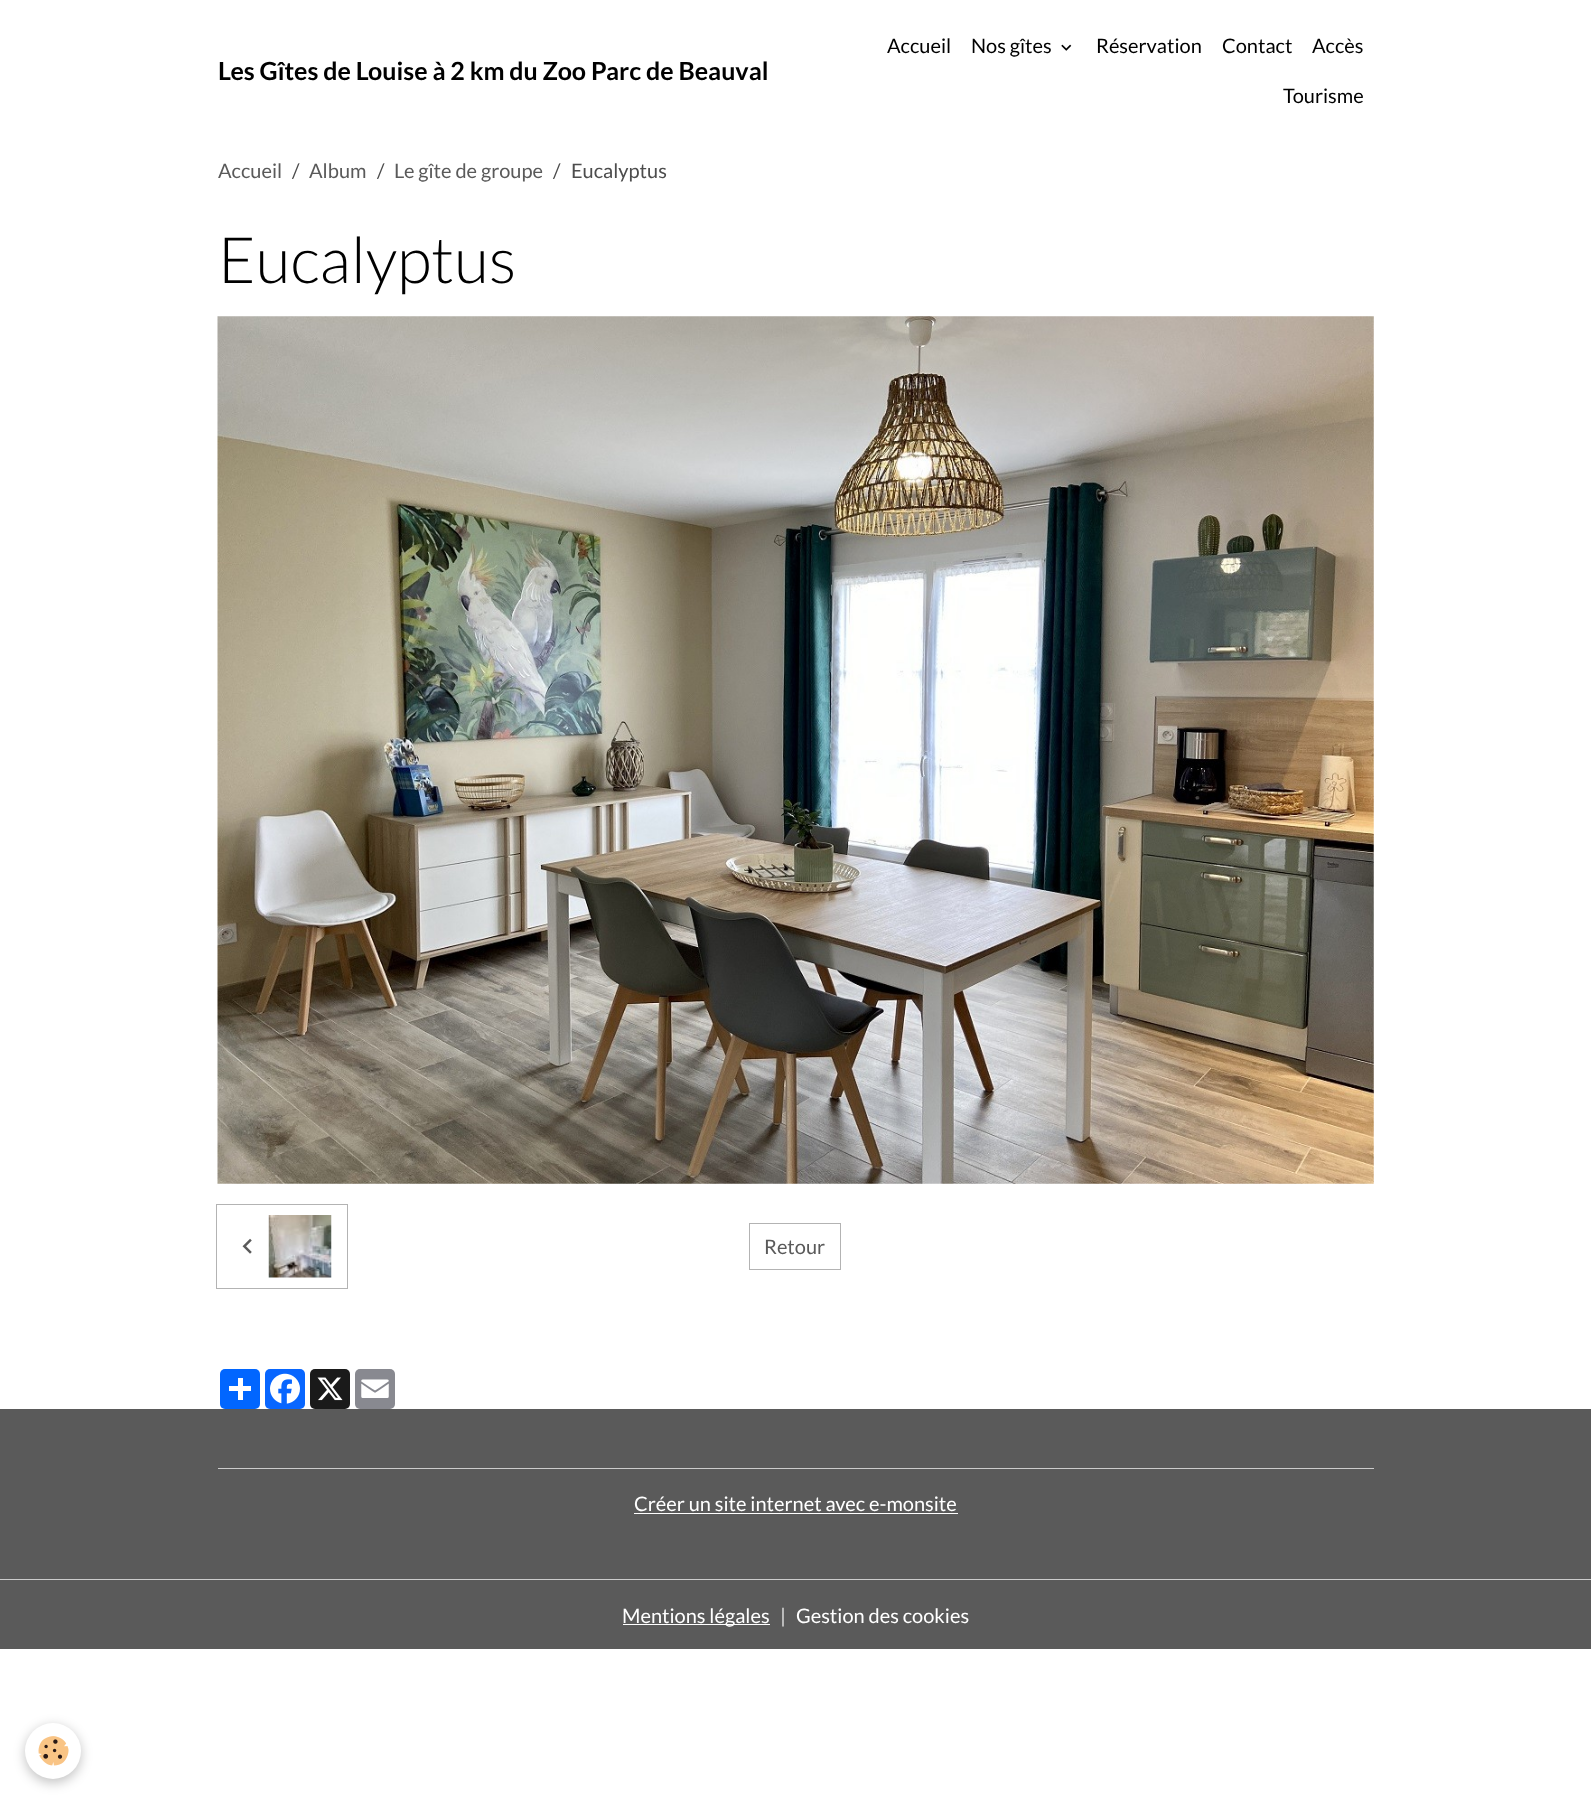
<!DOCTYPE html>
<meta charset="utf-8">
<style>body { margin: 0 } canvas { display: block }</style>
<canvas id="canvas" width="1591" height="1802"></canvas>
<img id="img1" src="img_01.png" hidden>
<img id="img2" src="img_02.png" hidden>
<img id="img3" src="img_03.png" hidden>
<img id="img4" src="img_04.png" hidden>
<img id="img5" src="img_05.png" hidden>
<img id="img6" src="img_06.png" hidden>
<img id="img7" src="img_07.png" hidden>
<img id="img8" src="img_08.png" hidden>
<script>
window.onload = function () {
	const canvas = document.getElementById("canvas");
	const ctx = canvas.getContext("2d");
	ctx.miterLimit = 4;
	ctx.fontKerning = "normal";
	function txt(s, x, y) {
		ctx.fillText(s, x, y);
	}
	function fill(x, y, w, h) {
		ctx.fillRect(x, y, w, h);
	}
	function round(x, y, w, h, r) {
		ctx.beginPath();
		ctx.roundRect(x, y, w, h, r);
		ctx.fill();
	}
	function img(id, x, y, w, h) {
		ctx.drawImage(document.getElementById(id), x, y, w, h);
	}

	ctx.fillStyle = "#FFFFFF";
	fill(0, 0, 1591, 1802);
	img("img1", 1061, 44, 11, 7);
	img("img2", 217, 316, 1157, 868);
	ctx.strokeStyle = "#B3B3B3";
	ctx.strokeRect(216.5, 1204.5, 131, 84);
	img("img3", 242, 1238, 10, 16);
	img("img4", 268, 1215, 64, 63);
	ctx.strokeRect(749.5, 1223.5, 91, 46);
	ctx.fillStyle = "#0166FF";
	round(220, 1369, 40, 40, 5);
	ctx.fillStyle = "#FFFFFF";
	fill(238, 1378, 5, 22);
	fill(229, 1386, 22, 5);
	ctx.fillStyle = "#0866FF";
	round(265, 1369, 40, 40, 5);
	img("img5", 270, 1373, 30, 31);
	ctx.fillStyle = "#1A1A1A";
	round(310, 1369, 40, 40, 5);
	img("img6", 317, 1377, 26, 24);
	ctx.fillStyle = "#888990";
	round(355, 1369, 40, 40, 5);
	img("img7", 361, 1379, 28, 19);
	ctx.fillStyle = "#5A5A5A";
	fill(0, 1409, 1591, 240);
	ctx.fillStyle = "#CCCCCC";
	fill(218, 1468, 1156, 1);
	ctx.fillStyle = "#FFFFFF";
	fill(634, 1513, 324, 1);
	ctx.fillStyle = "#CCCCCC";
	fill(0, 1579, 1591, 1);
	ctx.fillStyle = "#FFFFFF";
	fill(623, 1624, 147, 1);
	ctx.fillStyle = "rgba(0, 0, 0, 0.24)";
	ctx.filter = "blur(6px)";
	ctx.beginPath();
	ctx.roundRect(25, 1726, 56, 57, 28);
	ctx.fill();
	ctx.filter = "none";
	ctx.fillStyle = "#FFFFFF";
	ctx.beginPath();
	ctx.arc(53, 1751, 28, 0, Math.PI * 2);
	ctx.fill();
	img("img8", 38, 1736, 31, 30);
	ctx.font = "bold 25px Lato";
	ctx.fillStyle = "#000000";
	txt("Les Gîtes de Louise à 2 km du Zoo Parc de Beauval", 218, 80);
	ctx.font = "20px Lato";
	txt("Accueil", 887, 53);
	txt("Nos gîtes", 971, 53);
	txt("Réservation", 1096, 53);
	txt("Contact", 1222, 53);
	txt("Accès", 1312, 53);
	txt("Tourisme", 1283, 103);
	ctx.fillStyle = "#5A5A5A";
	txt("Accueil", 218, 178);
	ctx.fillStyle = "#4D4D4D";
	txt("/", 292, 178);
	ctx.fillStyle = "#5A5A5A";
	txt("Album", 309, 178);
	ctx.fillStyle = "#4D4D4D";
	txt("/", 377, 178);
	ctx.fillStyle = "#5A5A5A";
	txt("Le gîte de groupe", 394, 178);
	ctx.fillStyle = "#4D4D4D";
	txt("/", 553, 178);
	txt("Eucalyptus", 571, 178);
	ctx.font = "300 64px Lato";
	ctx.fillStyle = "#000000";
	txt("Eucalyptus", 218, 283);
	ctx.font = "20px Lato";
	ctx.fillStyle = "#5A5A5A";
	txt("Retour", 764, 1254);
	ctx.fillStyle = "#FFFFFF";
	txt("Créer un site internet avec e-monsite", 634, 1511);
	txt("Mentions légales", 622, 1623);
	ctx.fillStyle = "#DEDEDE";
	txt("|", 780, 1623);
	ctx.fillStyle = "#FFFFFF";
	txt("Gestion des cookies", 796, 1623);
};
</script>
